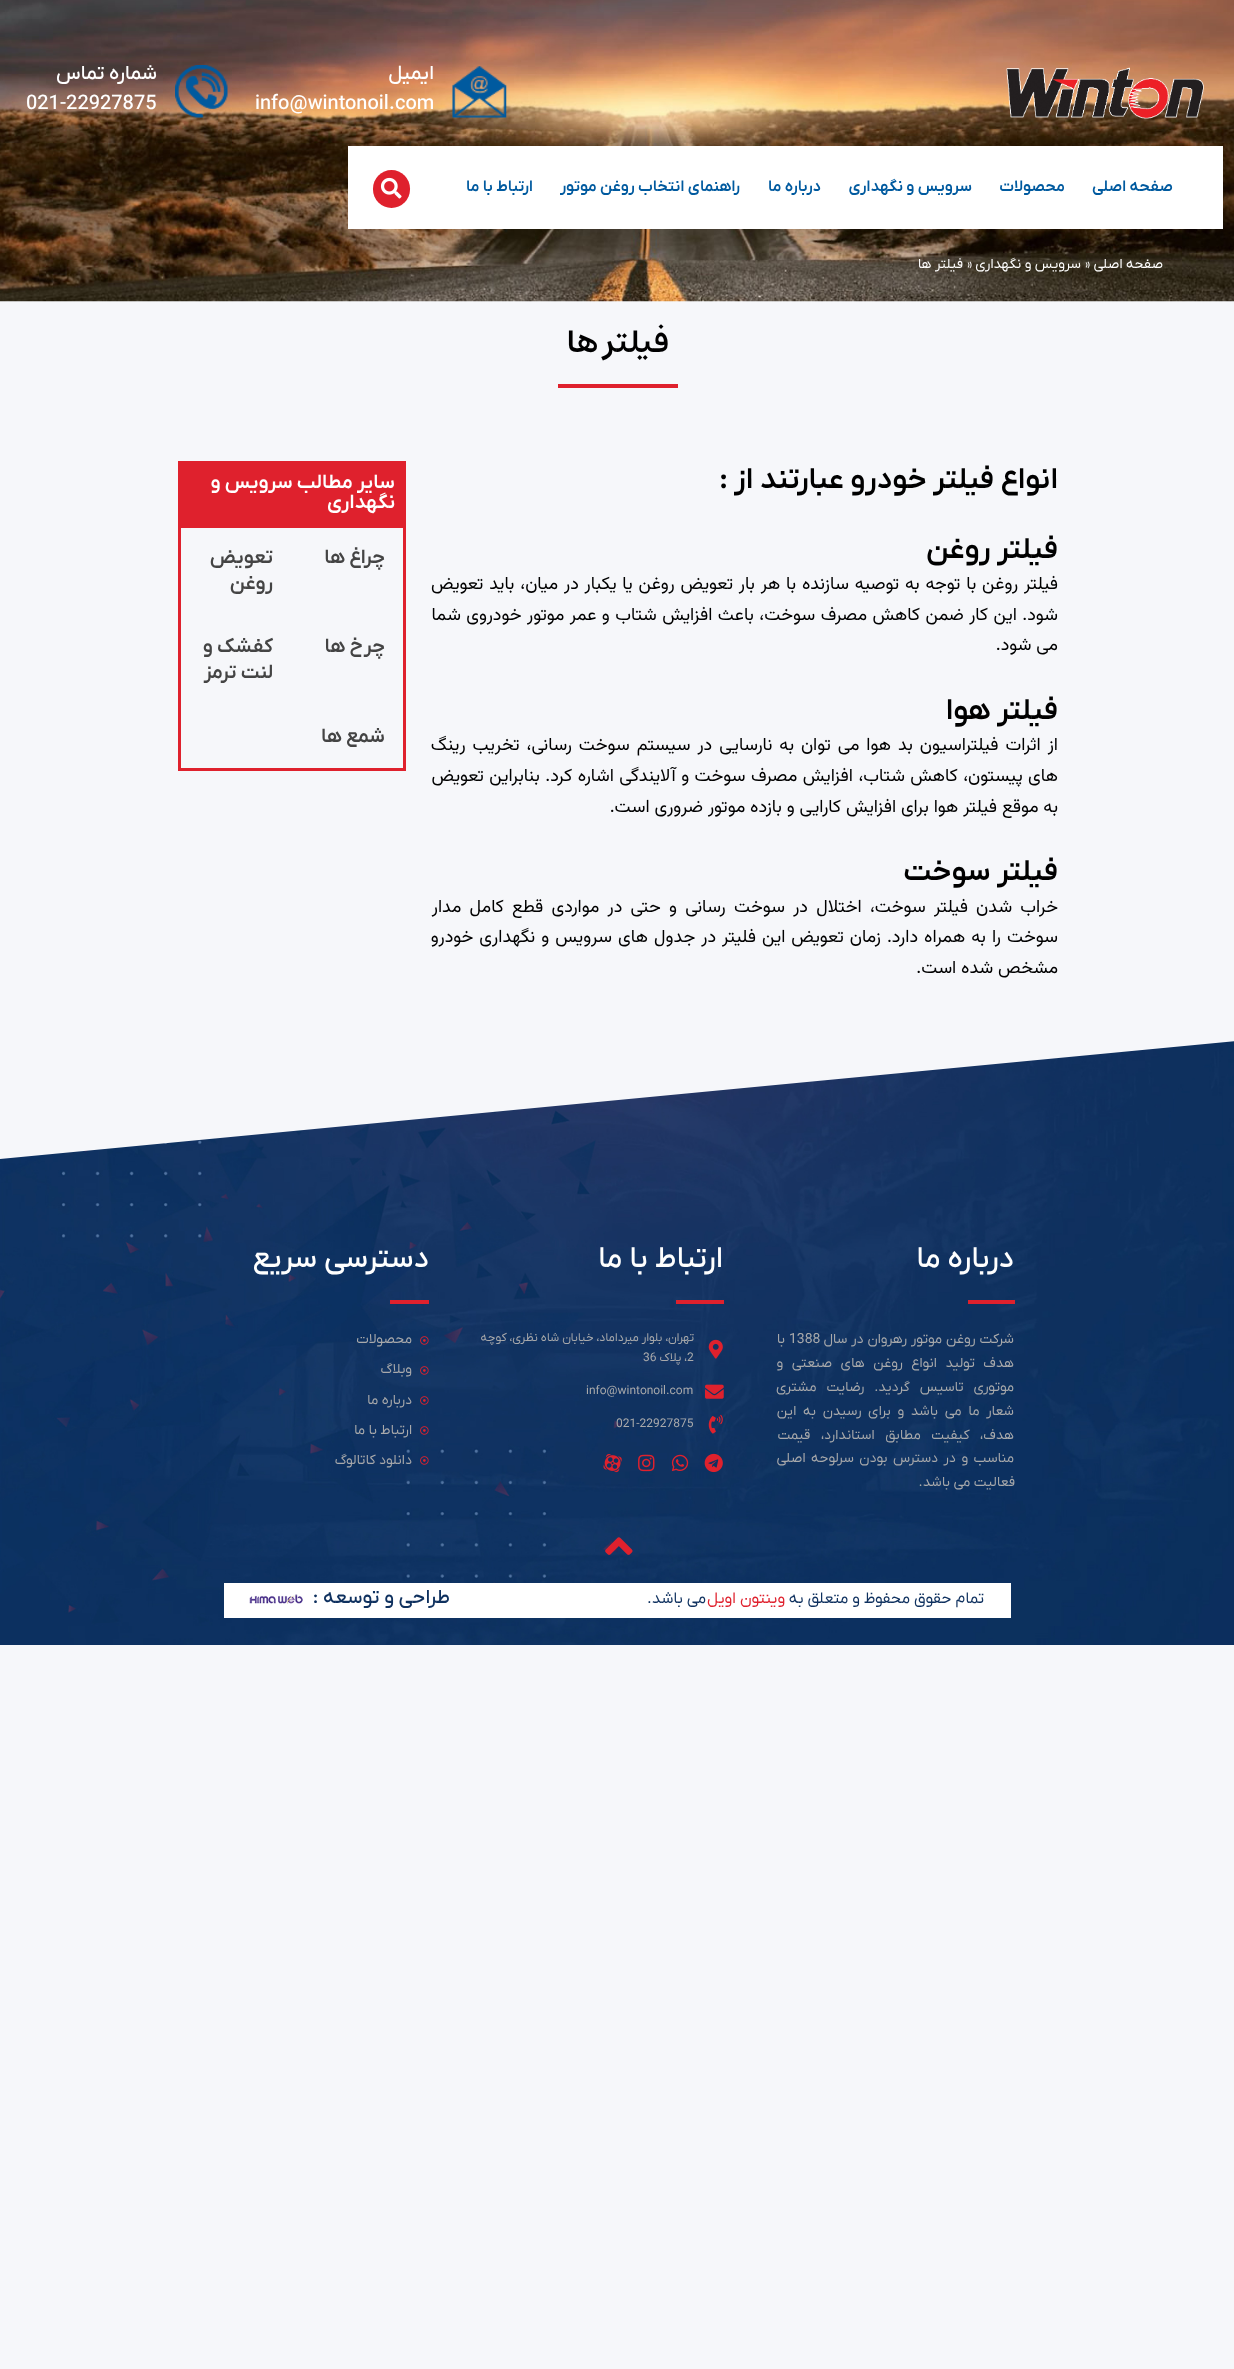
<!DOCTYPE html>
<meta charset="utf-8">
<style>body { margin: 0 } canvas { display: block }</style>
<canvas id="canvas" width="1234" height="2369"></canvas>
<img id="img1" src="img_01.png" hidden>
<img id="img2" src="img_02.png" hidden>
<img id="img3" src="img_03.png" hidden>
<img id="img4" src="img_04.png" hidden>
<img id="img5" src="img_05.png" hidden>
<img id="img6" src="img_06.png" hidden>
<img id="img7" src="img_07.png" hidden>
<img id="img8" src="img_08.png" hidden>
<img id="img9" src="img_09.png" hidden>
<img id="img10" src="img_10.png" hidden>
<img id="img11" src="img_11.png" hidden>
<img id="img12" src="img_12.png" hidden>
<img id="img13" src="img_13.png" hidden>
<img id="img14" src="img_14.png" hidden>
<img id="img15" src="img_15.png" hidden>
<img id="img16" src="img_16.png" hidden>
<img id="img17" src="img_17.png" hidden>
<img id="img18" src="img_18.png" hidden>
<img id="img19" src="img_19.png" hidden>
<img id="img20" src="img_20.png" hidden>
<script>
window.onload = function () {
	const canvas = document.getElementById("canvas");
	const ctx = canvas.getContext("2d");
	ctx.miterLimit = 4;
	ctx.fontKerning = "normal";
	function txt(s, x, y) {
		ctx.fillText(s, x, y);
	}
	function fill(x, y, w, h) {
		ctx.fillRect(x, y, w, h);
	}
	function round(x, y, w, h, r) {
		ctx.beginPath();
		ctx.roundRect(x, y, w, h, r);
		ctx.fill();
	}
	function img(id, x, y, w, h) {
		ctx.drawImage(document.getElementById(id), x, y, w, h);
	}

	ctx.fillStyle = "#F6F7FA";
	fill(0, 0, 1234, 2369);
	img("img1", 0, 0, 1234, 302);
	img("img2", 1006, 67, 198, 52);
	img("img3", 452, 66, 55, 52);
	img("img4", 175, 65, 53, 53);
	ctx.fillStyle = "#FFFFFF";
	fill(348, 146, 875, 83);
	ctx.fillStyle = "#DF212D";
	round(373, 170, 37, 38, 18.5);
	img("img5", 380, 177, 22, 22);
	fill(558, 384, 120, 4);
	fill(178, 461, 228, 64);
	ctx.strokeStyle = "#DF212D";
	ctx.lineWidth = 3;
	ctx.strokeRect(179.5, 526.5, 225, 243);
	img("img6", 0, 1041, 1234, 604);
	ctx.fillStyle = "#F6F7FA";
	ctx.beginPath();
	ctx.moveTo(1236, 1041);
	ctx.lineTo(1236, 1034);
	ctx.lineTo(-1, 1034);
	ctx.lineTo(-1, 1159);
	ctx.closePath();
	ctx.fill();
	ctx.fillStyle = "#DF212D";
	fill(968, 1300, 47, 4);
	fill(676, 1300, 48, 4);
	img("img7", 708, 1339, 15, 20);
	img("img8", 705, 1384, 19, 15);
	img("img9", 708, 1414, 15, 20);
	img("img10", 704, 1453, 19, 20);
	img("img11", 671, 1454, 18, 18);
	img("img12", 638, 1454, 17, 18);
	img("img13", 603, 1454, 19, 19);
	fill(390, 1300, 39, 4);
	img("img14", 420, 1336, 9, 9);
	img("img15", 420, 1366, 9, 9);
	img("img16", 420, 1396, 9, 9);
	img("img17", 420, 1426, 9, 9);
	img("img18", 420, 1456, 9, 9);
	img("img19", 605, 1537, 28, 18);
	ctx.fillStyle = "#FFFFFF";
	fill(224, 1583, 787, 35);
	img("img20", 249, 1594, 54, 10);
	ctx.direction = "rtl";
	ctx.font = "500 20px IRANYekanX";
	txt("ایمیل", 434, 79);
	ctx.direction = "ltr";
	txt("info@wintonoil.com", 255, 109);
	ctx.direction = "rtl";
	txt("شماره تماس", 157, 79);
	ctx.direction = "ltr";
	txt("021-22927875", 26, 109);
	ctx.direction = "rtl";
	ctx.font = "600 16px IRANYekanX";
	ctx.fillStyle = "#005A9F";
	txt("صفحه اصلی", 1173, 191);
	txt("محصولات", 1065, 191);
	txt("سرویس و نگهداری", 972, 191);
	txt("درباره ما", 821, 191);
	txt("راهنمای انتخاب روغن موتور", 740, 191);
	txt("ارتباط با ما", 533, 191);
	ctx.font = "14px IRANYekanX";
	ctx.fillStyle = "#FFFFFF";
	txt("صفحه اصلی", 1163, 268);
	ctx.direction = "ltr";
	txt("»", 1085, 268);
	ctx.direction = "rtl";
	txt("سرویس و نگهداری", 1081, 268);
	ctx.direction = "ltr";
	txt("»", 967, 268);
	ctx.direction = "rtl";
	txt("فیلتر ها", 963, 268);
	ctx.font = "600 32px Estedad";
	ctx.fillStyle = "#000000";
	txt("فیلتر ها", 669, 352);
	ctx.font = "600 30px IRANYekanX";
	txt("انواع فیلتر خودرو عبارتند از :", 1058, 488);
	txt("فیلتر روغن", 1058, 558);
	ctx.wordSpacing = "1px";
	ctx.font = "18px Vazirmatn";
	txt("فیلتر روغن با توجه به توصیه سازنده با هر بار تعویض روغن یا یکبار در میان، باید تعویض", 1058, 589);
	ctx.wordSpacing = "0.6px";
	txt("شود. این کار ضمن کاهش مصرف سوخت، باعث افزایش شتاب و عمر موتور خودروی شما", 1058, 620);
	ctx.wordSpacing = "0px";
	txt("می شود.", 1058, 650);
	ctx.font = "600 30px IRANYekanX";
	txt("فیلتر هوا", 1058, 719);
	ctx.wordSpacing = "2.1px";
	ctx.font = "18px Vazirmatn";
	txt("از اثرات فیلتراسیون بد هوا می توان به نارسایی در سیستم سوخت رسانی، تخریب رینگ", 1058, 750);
	ctx.wordSpacing = "0.6px";
	txt("های پیستون، کاهش شتاب، افزایش مصرف سوخت و آلایندگی اشاره کرد. بنابراین تعویض", 1058, 781);
	ctx.wordSpacing = "0px";
	txt("به موقع فیلتر هوا برای افزایش کارایی و بازده موتور ضروری است.", 1058, 812);
	ctx.font = "600 30px IRANYekanX";
	txt("فیلتر سوخت", 1058, 880);
	ctx.wordSpacing = "3.4px";
	ctx.font = "18px Vazirmatn";
	txt("خراب شدن فیلتر سوخت، اختلال در سوخت رسانی و حتی در مواردی قطع کامل مدار", 1058, 912);
	ctx.wordSpacing = "1.2px";
	txt("سوخت را به همراه دارد. زمان تعویض این فلیتر در جدول های سرویس و نگهداری خودرو", 1058, 942);
	ctx.wordSpacing = "0px";
	txt("مشخص شده است.", 1058, 973);
	ctx.font = "600 20px IRANYekanX";
	ctx.fillStyle = "#FFFFFF";
	txt("سایر مطالب سرویس و", 395, 488);
	txt("نگهداری", 395, 508);
	ctx.fillStyle = "#444444";
	txt("چراغ ها", 385, 563);
	txt("تعویض", 273, 563);
	txt("روغن", 273, 589);
	txt("چرخ ها", 385, 652);
	txt("کفشک و", 273, 652);
	txt("لنت ترمز", 273, 678);
	txt("شمع ها", 385, 742);
	ctx.font = "500 30px IRANYekanX";
	ctx.fillStyle = "#FFFFFF";
	txt("درباره ما", 1014, 1267);
	ctx.wordSpacing = "0.5px";
	ctx.font = "14px IRANYekanX";
	ctx.fillStyle = "#A8A9AB";
	txt("شرکت روغن موتور رهروان در سال", 1014, 1343);
	ctx.wordSpacing = "0px";
	ctx.direction = "ltr";
	txt("1388", 789, 1343);
	ctx.direction = "rtl";
	txt("با", 785, 1343);
	ctx.wordSpacing = "5px";
	txt("هدف تولید انواع روغن های صنعتی و", 1014, 1367);
	ctx.wordSpacing = "6.5px";
	txt("موتوری تاسیس گردید. رضایت مشتری", 1014, 1391);
	ctx.wordSpacing = "3.25px";
	txt("شعار ما می باشد و برای رسیدن به این", 1014, 1415);
	ctx.wordSpacing = "7px";
	txt("هدف، کیفیت مطابق استاندارد، قیمت", 1014, 1439);
	ctx.wordSpacing = "2px";
	txt("مناسب و در دسترس بودن سرلوحه اصلی", 1014, 1462);
	ctx.wordSpacing = "0px";
	txt("فعالیت می باشد.", 1015, 1486);
	ctx.font = "500 30px IRANYekanX";
	ctx.fillStyle = "#FFFFFF";
	txt("ارتباط با ما", 723, 1267);
	ctx.font = "12px IRANYekanX";
	ctx.fillStyle = "#A8A9AB";
	txt("تهران، بلوار میرداماد، خیابان شاه نظری، کوچه", 694, 1341);
	ctx.direction = "ltr";
	txt("2", 687, 1361);
	ctx.direction = "rtl";
	txt("، پلاک", 687, 1361);
	ctx.direction = "ltr";
	txt("36", 643, 1361);
	txt("info@wintonoil.com", 586, 1394);
	txt("021-22927875", 616, 1427);
	ctx.direction = "rtl";
	ctx.font = "500 30px IRANYekanX";
	ctx.fillStyle = "#FFFFFF";
	txt("دسترسی سریع", 429, 1267);
	ctx.font = "14px IRANYekanX";
	ctx.fillStyle = "#A8A9AB";
	txt("محصولات", 412, 1343);
	txt("وبلاگ", 412, 1373);
	txt("درباره ما", 412, 1404);
	txt("ارتباط با ما", 412, 1434);
	txt("دانلود کاتالوگ", 412, 1464);
	ctx.font = "16px IRANYekanX";
	ctx.fillStyle = "#0F315F";
	txt("تمام حقوق محفوظ و متعلق به", 984, 1603);
	ctx.fillStyle = "#DF212D";
	txt("وینتون اویل", 785, 1603);
	ctx.fillStyle = "#0F315F";
	txt("می باشد.", 706, 1603);
	ctx.font = "500 20px IRANYekanX";
	txt("طراحی و توسعه :", 450, 1603);
};
</script>
